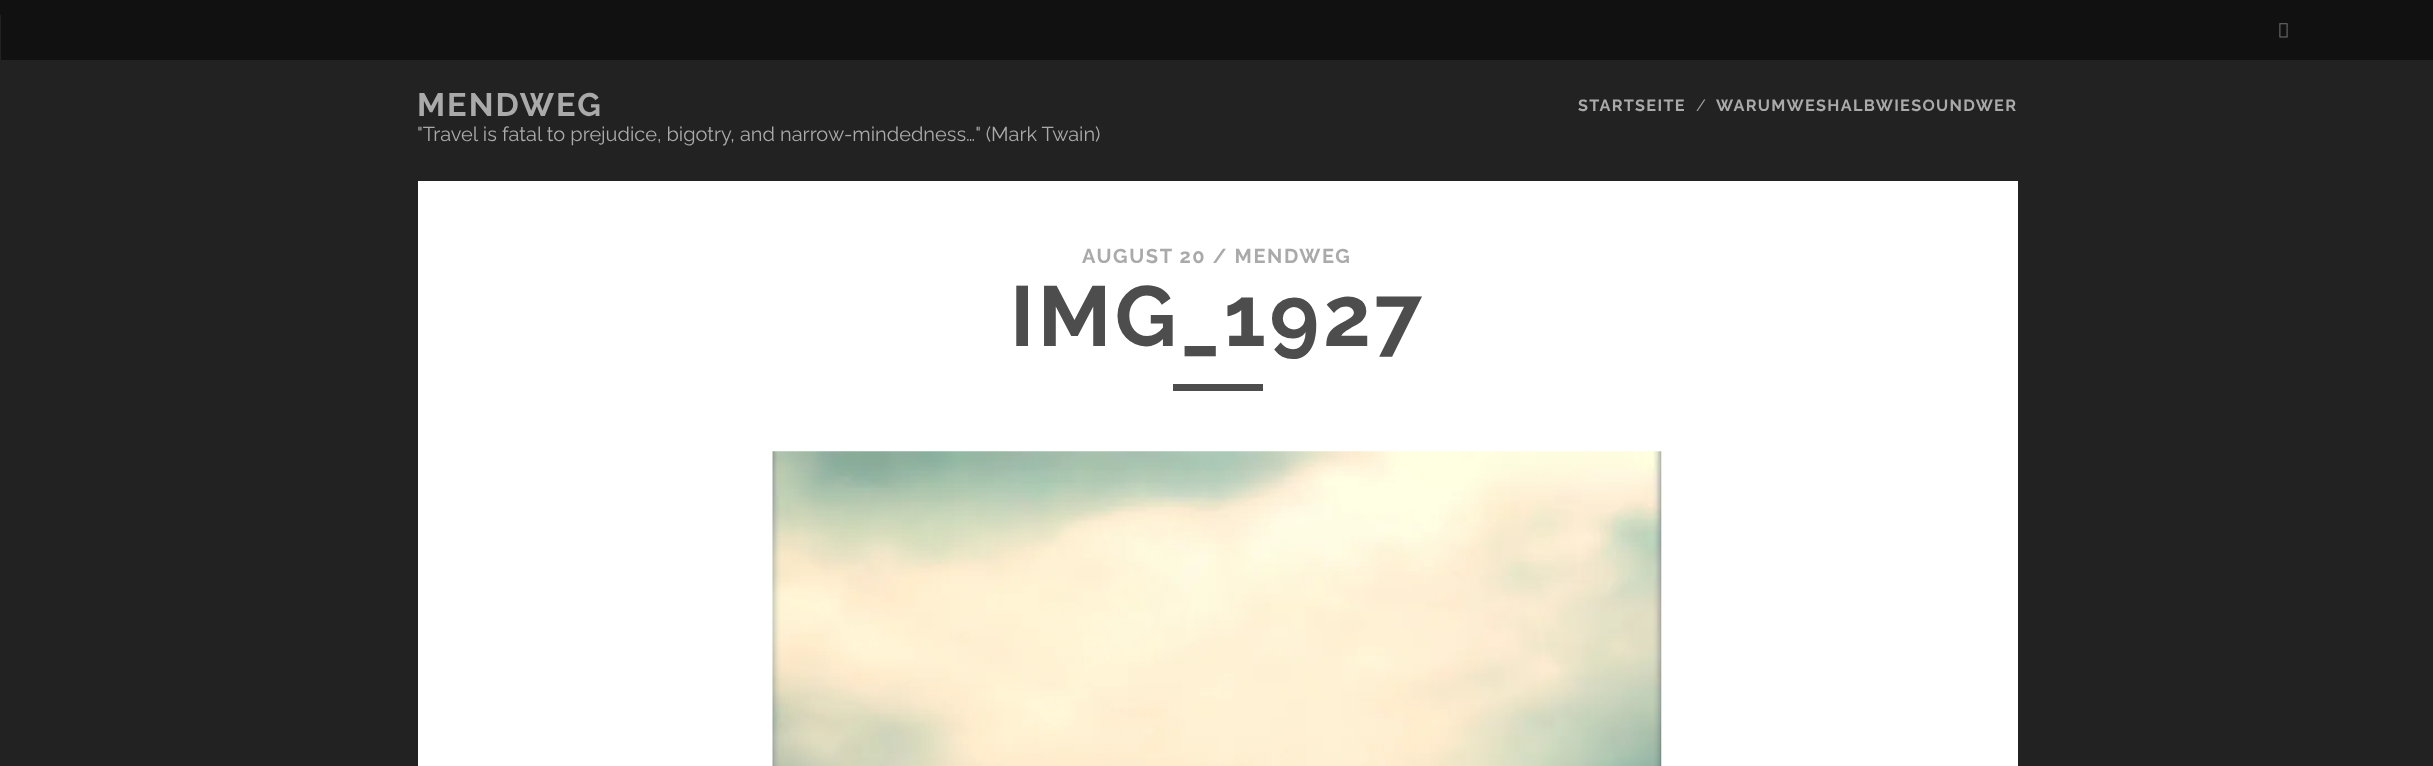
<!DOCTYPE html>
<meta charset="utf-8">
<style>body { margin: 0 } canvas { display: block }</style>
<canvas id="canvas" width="2433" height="766"></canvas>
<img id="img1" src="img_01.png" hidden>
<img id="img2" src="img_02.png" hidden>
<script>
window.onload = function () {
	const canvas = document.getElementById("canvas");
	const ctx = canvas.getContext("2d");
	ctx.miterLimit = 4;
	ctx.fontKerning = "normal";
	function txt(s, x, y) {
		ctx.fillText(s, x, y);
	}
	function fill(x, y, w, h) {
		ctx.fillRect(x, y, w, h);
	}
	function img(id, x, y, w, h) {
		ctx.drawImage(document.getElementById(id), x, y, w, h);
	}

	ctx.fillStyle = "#222222";
	fill(0, 0, 2433, 766);
	ctx.fillStyle = "#111111";
	fill(0, 0, 1, 15);
	fill(1, 0, 2432, 60);
	img("img1", 2279, 23, 9, 15);
	ctx.fillStyle = "#FFFFFF";
	fill(418, 181, 1600, 585);
	ctx.fillStyle = "#4D4D4D";
	fill(1173, 384, 90, 7);
	img("img2", 772, 451, 890, 315);
	ctx.letterSpacing = "2px";
	ctx.font = "bold 32.5px Raleway";
	ctx.fillStyle = "#AAAAAA";
	txt("MENDWEG", 417, 116);
	ctx.letterSpacing = "1.3px";
	ctx.font = "bold 16.25px Raleway";
	txt("STARTSEITE", 1578, 111);
	ctx.letterSpacing = "0px";
	ctx.font = "16.25px Raleway";
	txt("/", 1696, 111);
	ctx.letterSpacing = "1.3px";
	ctx.font = "bold 16.25px Raleway";
	txt("WARUMWESHALBWIESOUNDWER", 1716, 111);
	ctx.letterSpacing = "0px";
	ctx.font = "20px Raleway";
	txt("\"Travel is fatal to prejudice, bigotry, and narrow-mindedness…\" (Mark Twain)", 417, 141);
	ctx.letterSpacing = "1.6px";
	ctx.font = "bold 20px Raleway";
	txt("AUGUST 20 / MENDWEG", 1082, 263);
	ctx.letterSpacing = "3.5px";
	ctx.font = "bold 85px Raleway";
	ctx.fillStyle = "#4D4D4D";
	txt("IMG_1927", 1010, 346);
};
</script>
